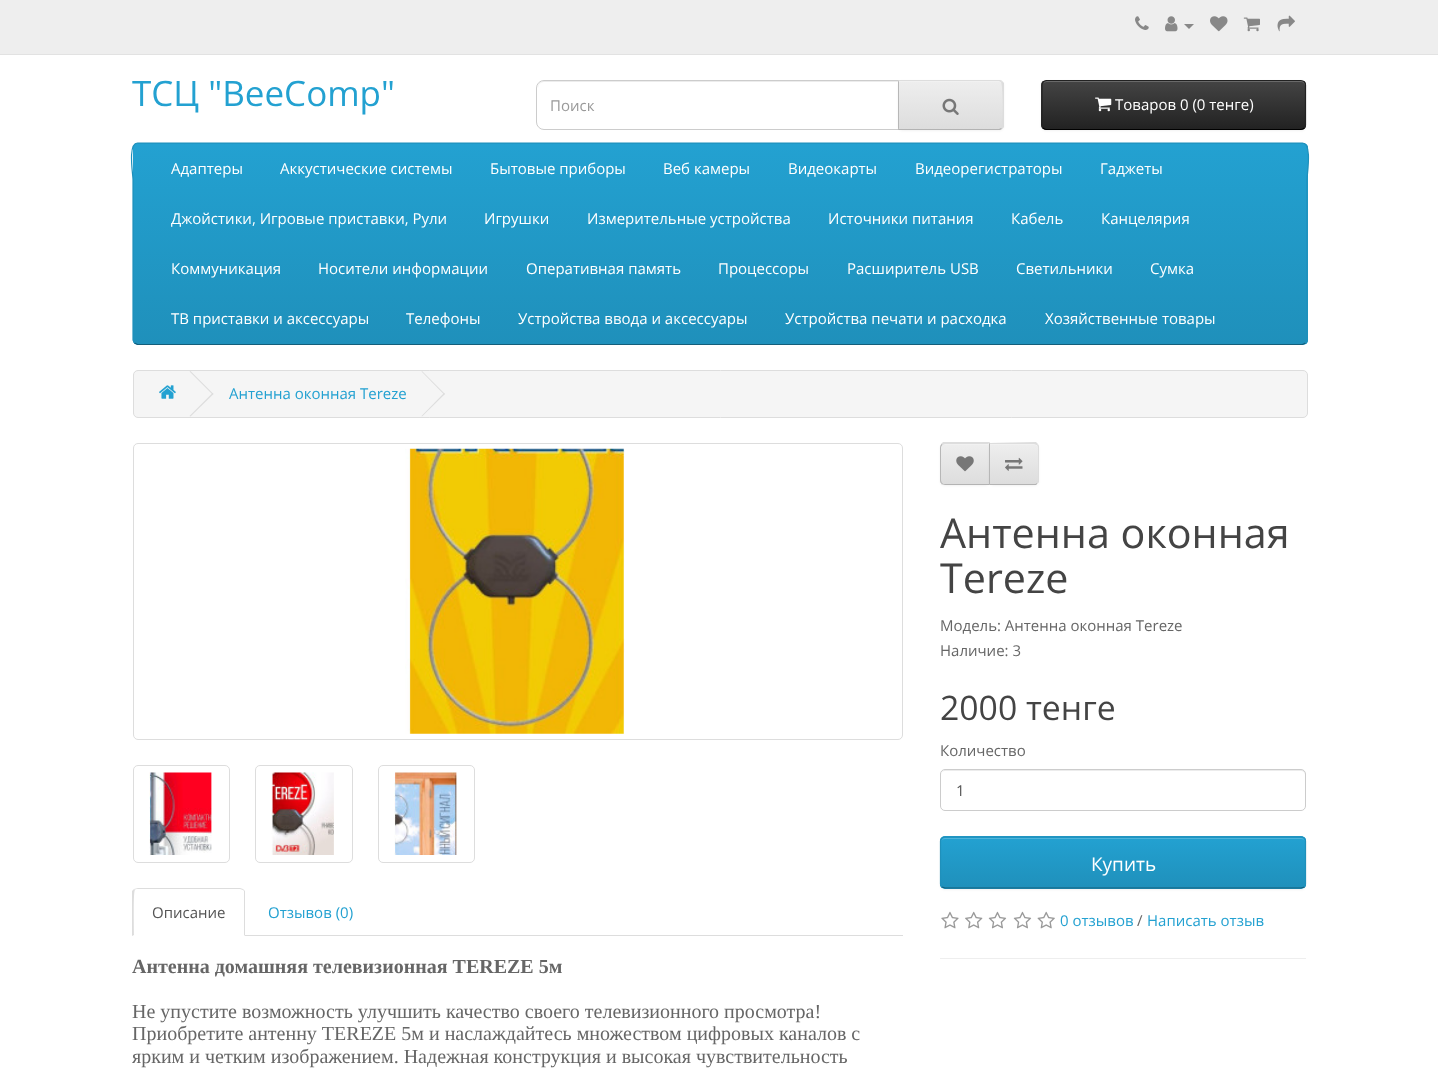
<!DOCTYPE html>
<meta charset="utf-8">
<style>body { margin: 0 } canvas { display: block }</style>
<canvas id="canvas" width="1438" height="1077"></canvas>
<img id="img1" src="img_01.png" hidden>
<img id="img2" src="img_02.png" hidden>
<img id="img3" src="img_03.png" hidden>
<img id="img4" src="img_04.png" hidden>
<img id="img5" src="img_05.png" hidden>
<img id="img6" src="img_06.png" hidden>
<img id="img7" src="img_07.png" hidden>
<img id="img8" src="img_08.png" hidden>
<img id="img9" src="img_09.png" hidden>
<img id="img10" src="img_10.png" hidden>
<img id="img11" src="img_11.png" hidden>
<img id="img12" src="img_12.png" hidden>
<img id="img13" src="img_13.png" hidden>
<img id="img14" src="img_14.png" hidden>
<img id="img15" src="img_15.png" hidden>
<img id="img16" src="img_16.png" hidden>
<img id="img17" src="img_17.png" hidden>
<img id="img18" src="img_18.png" hidden>
<script>
window.onload = function () {
	const canvas = document.getElementById("canvas");
	const ctx = canvas.getContext("2d");
	ctx.miterLimit = 4;
	ctx.fontKerning = "normal";
	function txt(s, x, y) {
		ctx.fillText(s, x, y);
	}
	function fill(x, y, w, h) {
		ctx.fillRect(x, y, w, h);
	}
	function round(x, y, w, h, r) {
		ctx.beginPath();
		ctx.roundRect(x, y, w, h, r);
		ctx.fill();
	}
	function img(id, x, y, w, h) {
		ctx.drawImage(document.getElementById(id), x, y, w, h);
	}
	let gradient;

	ctx.fillStyle = "#FFFFFF";
	fill(0, 0, 1438, 1077);
	ctx.fillStyle = "#EEEEEE";
	fill(0, 0, 1438, 54);
	ctx.fillStyle = "#E2E2E2";
	fill(0, 54, 1438, 1);
	img("img1", 1135, 16, 14, 14);
	img("img2", 1165, 16, 13, 16);
	ctx.fillStyle = "#888888";
	ctx.beginPath();
	ctx.moveTo(1184, 24);
	ctx.lineTo(1194, 24);
	ctx.lineTo(1189, 29);
	ctx.closePath();
	ctx.fill();
	img("img3", 1210, 16, 18, 16);
	img("img4", 1243, 17, 17, 15);
	img("img5", 1277, 15, 18, 17);
	ctx.fillStyle = "#ECECEC";
	ctx.beginPath();
	ctx.moveTo(544, 82);
	ctx.lineTo(898, 82);
	ctx.lineTo(898, 81);
	ctx.lineTo(544, 81);
	ctx.bezierCurveTo(541, 81, 538, 84, 538, 87);
	ctx.lineTo(538, 89);
	ctx.bezierCurveTo(538, 85, 540, 82, 544, 82);
	ctx.closePath();
	ctx.fill();
	ctx.beginPath();
	ctx.roundRect(536.5, 80.5, 362, 49, [7.5, 0, 0, 7.5]);
	ctx.strokeStyle = "#CCCCCC";
	ctx.stroke();
	ctx.fillStyle = "rgba(0, 0, 0, 0.05)";
	ctx.filter = "blur(1px)";
	ctx.beginPath();
	ctx.roundRect(898, 81, 106, 50, 5);
	ctx.fill();
	ctx.filter = "none";
	ctx.save();
	ctx.beginPath();
	ctx.roundRect(898, 80, 106, 50, [0, 5, 5, 0]);
	ctx.clip();
	gradient = ctx.createLinearGradient(951, 81, 951, 129);
	gradient.addColorStop(0, "#EEEEEE");
	gradient.addColorStop(1, "#DDDDDD");
	ctx.fillStyle = gradient;
	fill(898, 81, 106, 48);
	ctx.restore();
	ctx.fillStyle = "rgba(255, 255, 255, 0.2)";
	ctx.beginPath();
	ctx.moveTo(899, 82);
	ctx.lineTo(999, 82);
	ctx.bezierCurveTo(1004, 82, 1002, 91, 1002, 93);
	ctx.lineTo(1002, 128);
	ctx.bezierCurveTo(1002, 127, 1003, 126, 1003, 125);
	ctx.lineTo(1003, 85);
	ctx.bezierCurveTo(1003, 83, 1001, 81, 999, 81);
	ctx.lineTo(899, 81);
	ctx.closePath();
	ctx.fill();
	ctx.fillStyle = "#DDDDDD";
	ctx.beginPath();
	ctx.moveTo(898, 80);
	ctx.lineTo(899, 82);
	ctx.lineTo(899, 81);
	ctx.lineTo(999, 81);
	ctx.lineTo(1001, 82);
	ctx.lineTo(1002, 81);
	ctx.bezierCurveTo(1002, 80, 1000, 80, 999, 80);
	ctx.closePath();
	ctx.fill();
	ctx.beginPath();
	ctx.moveTo(1004, 127);
	ctx.lineTo(1002, 129);
	ctx.lineTo(1001, 128);
	ctx.bezierCurveTo(1003, 125, 1003, 85, 1001, 82);
	ctx.lineTo(1002, 81);
	ctx.lineTo(1004, 83);
	ctx.closePath();
	ctx.fill();
	ctx.fillStyle = "#B3B3B3";
	ctx.beginPath();
	ctx.moveTo(898, 130);
	ctx.lineTo(1000, 130);
	ctx.lineTo(1002, 129);
	ctx.lineTo(1001, 128);
	ctx.lineTo(999, 129);
	ctx.lineTo(899, 129);
	ctx.lineTo(899, 128);
	ctx.closePath();
	ctx.fill();
	ctx.fillStyle = "#B7B7B7";
	ctx.beginPath();
	ctx.moveTo(898, 80);
	ctx.lineTo(898, 130);
	ctx.lineTo(899, 128);
	ctx.lineTo(899, 82);
	ctx.closePath();
	ctx.fill();
	img("img6", 942, 98, 17, 17);
	ctx.fillStyle = "rgba(0, 0, 0, 0.05)";
	ctx.filter = "blur(1px)";
	ctx.beginPath();
	ctx.roundRect(1041, 81, 265, 50, 5);
	ctx.fill();
	ctx.filter = "none";
	ctx.save();
	ctx.beginPath();
	ctx.roundRect(1041, 80, 265, 50, 5);
	ctx.clip();
	gradient = ctx.createLinearGradient(1174, 81, 1174, 129);
	gradient.addColorStop(0, "#444444");
	gradient.addColorStop(1, "#222222");
	ctx.fillStyle = gradient;
	fill(1041, 81, 265, 48);
	ctx.restore();
	ctx.fillStyle = "#696969";
	ctx.beginPath();
	ctx.moveTo(1046, 82);
	ctx.lineTo(1301, 82);
	ctx.bezierCurveTo(1303, 82, 1305, 84, 1305, 86);
	ctx.lineTo(1305, 85);
	ctx.bezierCurveTo(1305, 83, 1303, 81, 1301, 81);
	ctx.lineTo(1047, 81);
	ctx.bezierCurveTo(1046, 81, 1044, 82, 1044, 83);
	ctx.closePath();
	ctx.fill();
	ctx.beginPath();
	ctx.moveTo(1304.5, 128);
	ctx.bezierCurveTo(1303.5, 129, 1302.5, 129.5, 1301, 129.5);
	ctx.lineTo(1046, 129.5);
	ctx.bezierCurveTo(1045, 129.5, 1044, 129, 1043, 128);
	ctx.strokeStyle = "#000000";
	ctx.lineWidth = 1.2;
	ctx.stroke();
	ctx.beginPath();
	ctx.moveTo(1043, 128);
	ctx.bezierCurveTo(1042.5, 127.5, 1042, 126, 1042, 125);
	ctx.lineTo(1042, 85);
	ctx.bezierCurveTo(1042, 84, 1042.5, 82.5, 1043, 82);
	ctx.bezierCurveTo(1044, 81, 1045, 80.5, 1046, 80.5);
	ctx.lineTo(1301, 80.5);
	ctx.bezierCurveTo(1302.5, 80.5, 1303.5, 81, 1304.5, 82);
	ctx.bezierCurveTo(1305, 82.5, 1305.5, 84, 1305.5, 85);
	ctx.lineTo(1305.5, 125);
	ctx.bezierCurveTo(1305.5, 126, 1305, 127.5, 1304.5, 128);
	ctx.strokeStyle = "#222222";
	ctx.stroke();
	img("img7", 1095, 97, 17, 15);
	ctx.fillStyle = "#229AC8";
	round(133, 143, 1175, 202, 5);
	ctx.save();
	ctx.beginPath();
	ctx.roundRect(133, 143, 1175, 202, 5);
	ctx.clip();
	gradient = ctx.createLinearGradient(720, 144, 720, 344);
	gradient.addColorStop(0, "#23A1D1");
	gradient.addColorStop(1, "#1F90BB");
	ctx.fillStyle = gradient;
	fill(133, 144, 1175, 200);
	ctx.restore();
	ctx.beginPath();
	ctx.moveTo(1305.5, 343);
	ctx.lineTo(1302.5, 344.5);
	ctx.lineTo(137.5, 344.5);
	ctx.lineTo(134.5, 343);
	ctx.strokeStyle = "#145E7A";
	ctx.stroke();
	ctx.beginPath();
	ctx.moveTo(134.5, 343);
	ctx.lineTo(133, 340);
	ctx.lineTo(133, 179.5);
	ctx.bezierCurveTo(133, 174.5, 127.5, 143, 137.5, 143);
	ctx.lineTo(1302.5, 143);
	ctx.bezierCurveTo(1312.5, 143, 1307, 174.5, 1307, 179.5);
	ctx.lineTo(1307, 340);
	ctx.lineTo(1305.5, 343);
	ctx.strokeStyle = "#1F90BB";
	ctx.stroke();
	ctx.fillStyle = "#F5F5F5";
	ctx.beginPath();
	ctx.roundRect(133.5, 370.5, 1174, 47, 4.5);
	ctx.fill();
	ctx.strokeStyle = "#DDDDDD";
	ctx.lineWidth = 1;
	ctx.stroke();
	img("img8", 159, 385, 17, 14);
	ctx.fillStyle = "#DDDDDD";
	ctx.beginPath();
	ctx.moveTo(189.5, 371.5);
	ctx.lineTo(190.5, 371);
	ctx.lineTo(213.5, 394);
	ctx.lineTo(212.5, 394.5);
	ctx.closePath();
	ctx.fill();
	ctx.beginPath();
	ctx.moveTo(189.5, 416);
	ctx.lineTo(212.5, 393);
	ctx.lineTo(213.5, 394);
	ctx.lineTo(190.5, 416.5);
	ctx.closePath();
	ctx.fill();
	ctx.beginPath();
	ctx.moveTo(421.5, 371.5);
	ctx.lineTo(422, 371);
	ctx.lineTo(445, 394);
	ctx.lineTo(444, 394.5);
	ctx.closePath();
	ctx.fill();
	ctx.beginPath();
	ctx.moveTo(421.5, 416);
	ctx.lineTo(444, 393);
	ctx.lineTo(445, 394);
	ctx.lineTo(422, 416.5);
	ctx.closePath();
	ctx.fill();
	ctx.fillStyle = "rgba(0, 0, 0, 0.05)";
	ctx.filter = "blur(1px)";
	ctx.beginPath();
	ctx.roundRect(940, 444, 50, 42, 5);
	ctx.fill();
	ctx.filter = "none";
	ctx.save();
	ctx.beginPath();
	ctx.roundRect(940, 443, 50, 42, [5, 0, 0, 5]);
	ctx.clip();
	gradient = ctx.createLinearGradient(965, 444, 965, 484);
	gradient.addColorStop(0, "#EEEEEE");
	gradient.addColorStop(1, "#DDDDDD");
	ctx.fillStyle = gradient;
	fill(940, 444, 49, 40);
	ctx.restore();
	ctx.fillStyle = "#F1F1F1";
	ctx.beginPath();
	ctx.moveTo(945, 445);
	ctx.lineTo(989, 445);
	ctx.lineTo(989, 444);
	ctx.lineTo(945, 444);
	ctx.bezierCurveTo(943, 444, 941, 446, 941, 448);
	ctx.lineTo(941, 449);
	ctx.bezierCurveTo(941, 447, 943, 445, 945, 445);
	ctx.closePath();
	ctx.fill();
	ctx.fillStyle = "#DDDDDD";
	ctx.beginPath();
	ctx.moveTo(945, 444);
	ctx.lineTo(942, 445);
	ctx.lineTo(941, 444);
	ctx.lineTo(943, 442);
	ctx.lineTo(990, 442);
	ctx.lineTo(988, 444);
	ctx.closePath();
	ctx.fill();
	ctx.beginPath();
	ctx.moveTo(990, 442);
	ctx.lineTo(988, 444);
	ctx.lineTo(989, 444);
	ctx.lineTo(989, 484);
	ctx.lineTo(990, 485);
	ctx.closePath();
	ctx.fill();
	ctx.fillStyle = "#B3B3B3";
	ctx.beginPath();
	ctx.moveTo(990, 485);
	ctx.lineTo(989, 484);
	ctx.lineTo(945, 484);
	ctx.bezierCurveTo(944, 484, 943, 484, 942, 483);
	ctx.lineTo(941, 484);
	ctx.bezierCurveTo(942, 484, 944, 485, 945, 485);
	ctx.closePath();
	ctx.fill();
	ctx.fillStyle = "#B7B7B7";
	ctx.beginPath();
	ctx.moveTo(940, 448);
	ctx.lineTo(940, 480);
	ctx.bezierCurveTo(940, 481.5, 940.5, 483, 941.5, 483.5);
	ctx.lineTo(942, 483);
	ctx.bezierCurveTo(941.5, 482, 941, 481, 941, 480);
	ctx.lineTo(941, 448);
	ctx.bezierCurveTo(941, 446.5, 941.5, 445.5, 942.5, 445);
	ctx.lineTo(941.5, 444);
	ctx.bezierCurveTo(940.5, 445, 940, 446.5, 940, 448);
	ctx.closePath();
	ctx.fill();
	img("img9", 956, 456, 18, 16);
	ctx.fillStyle = "rgba(0, 0, 0, 0.05)";
	ctx.filter = "blur(1px)";
	ctx.beginPath();
	ctx.roundRect(989, 444, 50, 42, 5);
	ctx.fill();
	ctx.filter = "none";
	ctx.save();
	ctx.beginPath();
	ctx.roundRect(989, 443, 50, 42, [0, 5, 5, 0]);
	ctx.clip();
	gradient = ctx.createLinearGradient(1014, 444, 1014, 484);
	gradient.addColorStop(0, "#EEEEEE");
	gradient.addColorStop(1, "#DDDDDD");
	ctx.fillStyle = gradient;
	fill(990, 444, 49, 40);
	ctx.restore();
	ctx.fillStyle = "#F1F1F1";
	ctx.beginPath();
	ctx.moveTo(990, 445);
	ctx.lineTo(1034, 445);
	ctx.bezierCurveTo(1036, 445, 1038, 447, 1038, 449);
	ctx.lineTo(1038, 448);
	ctx.bezierCurveTo(1038, 446, 1036, 444, 1034, 444);
	ctx.lineTo(990, 444);
	ctx.closePath();
	ctx.fill();
	ctx.fillStyle = "#DDDDDD";
	ctx.beginPath();
	ctx.moveTo(989, 443);
	ctx.lineTo(1036, 442);
	ctx.lineTo(1038, 444);
	ctx.lineTo(1037, 445);
	ctx.lineTo(1034, 444);
	ctx.lineTo(990, 444);
	ctx.closePath();
	ctx.fill();
	ctx.beginPath();
	ctx.moveTo(1039, 482);
	ctx.lineTo(1037, 484);
	ctx.lineTo(1037, 483);
	ctx.bezierCurveTo(1037, 482, 1038, 481, 1038, 480);
	ctx.lineTo(1038, 448);
	ctx.bezierCurveTo(1038, 446, 1037, 445, 1037, 445);
	ctx.lineTo(1038, 444);
	ctx.lineTo(1039, 446);
	ctx.closePath();
	ctx.fill();
	ctx.fillStyle = "#B3B3B3";
	ctx.beginPath();
	ctx.moveTo(989, 485);
	ctx.lineTo(1034, 485);
	ctx.bezierCurveTo(1035, 485, 1037, 485, 1037, 484);
	ctx.lineTo(1037, 483);
	ctx.bezierCurveTo(1036, 484, 1035, 484, 1034, 484);
	ctx.lineTo(990, 484);
	ctx.closePath();
	ctx.fill();
	ctx.fillStyle = "#B7B7B7";
	ctx.beginPath();
	ctx.moveTo(990, 444);
	ctx.lineTo(990, 484);
	ctx.lineTo(989, 485);
	ctx.lineTo(989, 443);
	ctx.closePath();
	ctx.fill();
	img("img10", 1005, 457, 18, 14);
	ctx.fillStyle = "#ECECEC";
	ctx.beginPath();
	ctx.moveTo(945, 771);
	ctx.lineTo(1301, 771);
	ctx.bezierCurveTo(1303, 771, 1305, 773, 1305, 775);
	ctx.bezierCurveTo(1305, 772, 1304, 770, 1301, 770);
	ctx.lineTo(944, 770);
	ctx.lineTo(942, 772);
	ctx.lineTo(941, 775);
	ctx.bezierCurveTo(941, 773, 943, 771, 945, 771);
	ctx.closePath();
	ctx.fill();
	ctx.beginPath();
	ctx.roundRect(940.5, 769.5, 365, 41, 4.5);
	ctx.strokeStyle = "#CCCCCC";
	ctx.stroke();
	ctx.fillStyle = "rgba(0, 0, 0, 0.05)";
	ctx.filter = "blur(1px)";
	ctx.beginPath();
	ctx.roundRect(940, 838, 366, 52, 5);
	ctx.fill();
	ctx.filter = "none";
	ctx.fillStyle = "#229AC8";
	round(940, 836, 366, 53, 5);
	ctx.save();
	ctx.beginPath();
	ctx.roundRect(940, 836, 366, 53, 5);
	ctx.clip();
	gradient = ctx.createLinearGradient(1123, 838, 1123, 888);
	gradient.addColorStop(0, "#23A1D1");
	gradient.addColorStop(1, "#1F90BB");
	ctx.fillStyle = gradient;
	fill(940, 838, 366, 50);
	ctx.restore();
	ctx.fillStyle = "#4FB4DA";
	ctx.beginPath();
	ctx.moveTo(945, 839);
	ctx.lineTo(1301, 839);
	ctx.bezierCurveTo(1303, 839, 1305, 840, 1305, 842);
	ctx.bezierCurveTo(1305, 840, 1303, 838, 1301, 838);
	ctx.lineTo(945, 838);
	ctx.bezierCurveTo(943, 838, 941, 840, 941, 842);
	ctx.bezierCurveTo(941, 840, 943, 839, 945, 839);
	ctx.closePath();
	ctx.fill();
	ctx.beginPath();
	ctx.moveTo(1304.5, 887);
	ctx.lineTo(1301, 888);
	ctx.lineTo(945, 888);
	ctx.lineTo(942, 887);
	ctx.strokeStyle = "#145E7A";
	ctx.lineWidth = 1.2;
	ctx.stroke();
	ctx.beginPath();
	ctx.moveTo(942, 887);
	ctx.bezierCurveTo(941, 886, 940.5, 885, 940.5, 884);
	ctx.lineTo(940.5, 841);
	ctx.bezierCurveTo(940.5, 840, 941, 839, 942, 838);
	ctx.bezierCurveTo(942.5, 837.5, 944, 837, 945, 837);
	ctx.lineTo(1301, 837);
	ctx.bezierCurveTo(1302.5, 837, 1303.5, 837.5, 1304.5, 838);
	ctx.bezierCurveTo(1305, 839, 1305.5, 840, 1305.5, 841);
	ctx.lineTo(1305.5, 884);
	ctx.bezierCurveTo(1305.5, 885, 1305, 886, 1304.5, 887);
	ctx.strokeStyle = "#1F90BB";
	ctx.stroke();
	img("img11", 941, 911, 18, 18);
	img("img12", 965, 911, 18, 18);
	img("img13", 988, 911, 19, 18);
	img("img13", 1013, 911, 19, 18);
	img("img14", 1037, 911, 18, 18);
	ctx.fillStyle = "#EEEEEE";
	fill(940, 958, 366, 1);
	ctx.beginPath();
	ctx.roundRect(133.5, 443.5, 769, 296, 4.5);
	ctx.strokeStyle = "#DDDDDD";
	ctx.lineWidth = 1;
	ctx.stroke();
	img("img15", 405, 448, 220, 286);
	ctx.beginPath();
	ctx.roundRect(133.5, 765.5, 96, 97, 4.5);
	ctx.stroke();
	img("img16", 149, 772, 63, 83);
	ctx.beginPath();
	ctx.roundRect(255.5, 765.5, 97, 97, 4.5);
	ctx.stroke();
	img("img17", 271, 772, 63, 83);
	ctx.beginPath();
	ctx.roundRect(378.5, 765.5, 96, 97, 4.5);
	ctx.stroke();
	img("img18", 394, 772, 63, 83);
	ctx.fillStyle = "#DDDDDD";
	fill(245, 935, 658, 1);
	ctx.beginPath();
	ctx.moveTo(138, 888);
	ctx.lineTo(134, 889);
	ctx.lineTo(135, 890);
	ctx.bezierCurveTo(135, 889, 136, 889, 138, 889);
	ctx.lineTo(240, 889);
	ctx.lineTo(243, 890);
	ctx.lineTo(243, 889);
	ctx.lineTo(240, 888);
	ctx.closePath();
	ctx.fill();
	ctx.beginPath();
	ctx.moveTo(245, 936);
	ctx.lineTo(245, 891);
	ctx.lineTo(243, 889);
	ctx.lineTo(243, 890);
	ctx.lineTo(244, 891);
	ctx.lineTo(244, 935);
	ctx.closePath();
	ctx.fill();
	ctx.beginPath();
	ctx.moveTo(132, 891);
	ctx.lineTo(134, 889);
	ctx.lineTo(135, 890);
	ctx.bezierCurveTo(133, 891, 134, 929, 134, 935);
	ctx.lineTo(132, 936);
	ctx.closePath();
	ctx.fill();
	ctx.font = "35px Open Sans";
	ctx.fillStyle = "#23A1D1";
	txt("ТСЦ \"BeeComp\"", 132, 106);
	ctx.font = "15px Open Sans";
	ctx.fillStyle = "#999999";
	txt("Поиск", 550, 111);
	ctx.fillStyle = "#FFFFFF";
	txt("Товаров 0 (0 тенге)", 1115, 110);
	txt("Адаптеры", 171, 174);
	txt("Аккустические системы", 280, 174);
	txt("Бытовые приборы", 490, 174);
	txt("Веб камеры", 663, 174);
	txt("Видеокарты", 788, 174);
	txt("Видеорегистраторы", 915, 174);
	txt("Гаджеты", 1100, 174);
	txt("Джойстики, Игровые приставки, Рули", 171, 224);
	txt("Игрушки", 484, 224);
	txt("Измерительные устройства", 587, 224);
	txt("Источники питания", 828, 224);
	txt("Кабель", 1011, 224);
	txt("Канцелярия", 1101, 224);
	txt("Коммуникация", 171, 274);
	txt("Носители информации", 318, 274);
	txt("Оперативная память", 526, 274);
	txt("Процессоры", 718, 274);
	txt("Расширитель USB", 847, 274);
	txt("Светильники", 1016, 274);
	txt("Сумка", 1150, 274);
	txt("ТВ приставки и аксессуары", 171, 324);
	txt("Телефоны", 406, 324);
	txt("Устройства ввода и аксессуары", 518, 324);
	txt("Устройства печати и расходка", 785, 324);
	txt("Хозяйственные товары", 1045, 324);
	ctx.fillStyle = "#23A1D1";
	txt("Антенна оконная Tereze", 229, 399);
	ctx.font = "41.25px Open Sans";
	ctx.fillStyle = "#444444";
	txt("Антенна оконная", 940, 548);
	txt("Tereze", 940, 593);
	ctx.font = "15px Open Sans";
	ctx.fillStyle = "#666666";
	txt("Модель: Антенна оконная Tereze", 940, 631);
	txt("Наличие: 3", 940, 656);
	ctx.font = "33.75px Open Sans";
	ctx.fillStyle = "#444444";
	txt("2000 тенге", 940, 720);
	ctx.font = "15px Open Sans";
	ctx.fillStyle = "#666666";
	txt("Количество", 940, 756);
	ctx.fillStyle = "#555555";
	txt("1", 956, 796);
	ctx.font = "19px Open Sans";
	ctx.fillStyle = "#FFFFFF";
	txt("Купить", 1091, 871);
	ctx.font = "15px Open Sans";
	ctx.fillStyle = "#23A1D1";
	txt("0 отзывов", 1060, 926);
	ctx.fillStyle = "#666666";
	txt("/", 1137, 926);
	ctx.fillStyle = "#23A1D1";
	txt("Написать отзыв", 1147, 926);
	ctx.fillStyle = "#555555";
	txt("Описание", 152, 918);
	ctx.fillStyle = "#23A1D1";
	txt("Отзывов (0)", 268, 918);
	ctx.font = "bold 20px Liberation Serif";
	ctx.fillStyle = "#666666";
	txt("Антенна домашняя телевизионная TEREZE 5м", 132, 973);
	ctx.font = "20px Liberation Serif";
	txt("Не упустите возможность улучшить качество своего телевизионного просмотра!", 132, 1018);
	txt("Приобретите антенну TEREZE 5м и наслаждайтесь множеством цифровых каналов с", 132, 1040);
	txt("ярким и четким изображением. Надежная конструкция и высокая чувствительность", 132, 1063);
};
</script>
